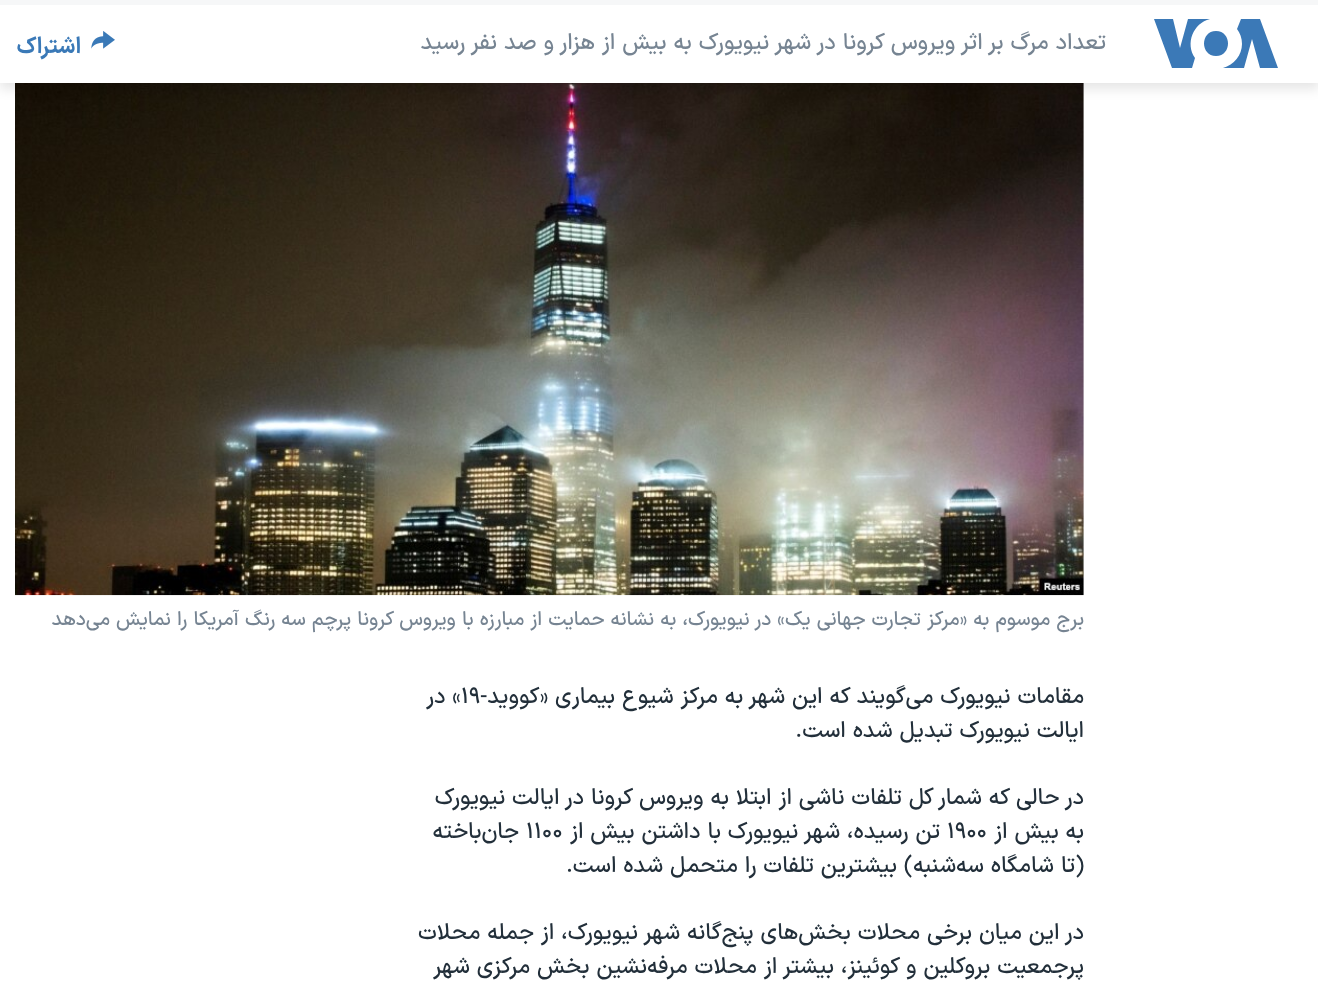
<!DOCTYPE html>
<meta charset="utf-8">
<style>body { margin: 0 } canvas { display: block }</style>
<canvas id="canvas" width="1318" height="983"></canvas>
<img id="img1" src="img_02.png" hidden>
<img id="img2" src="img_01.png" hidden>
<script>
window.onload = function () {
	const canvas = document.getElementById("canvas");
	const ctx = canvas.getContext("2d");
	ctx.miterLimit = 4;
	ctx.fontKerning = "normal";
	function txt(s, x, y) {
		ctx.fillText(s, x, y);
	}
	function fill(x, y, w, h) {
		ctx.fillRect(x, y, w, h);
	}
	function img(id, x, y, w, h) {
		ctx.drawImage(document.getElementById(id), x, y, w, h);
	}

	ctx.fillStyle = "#FFFFFF";
	fill(0, 0, 1318, 983);
	ctx.fillStyle = "#F6F7F8";
	fill(1083, 83, 1, 512);
	img("img1", 15, 83, 1069, 513);
	ctx.fillStyle = "rgba(0, 0, 0, 0.1)";
	ctx.filter = "blur(6px)";
	ctx.beginPath();
	ctx.rect(0, 6, 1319, 83);
	ctx.fill();
	ctx.filter = "none";
	ctx.fillStyle = "#FFFFFF";
	fill(0, 5, 1318, 78);
	ctx.fillStyle = "#F6F7F8";
	fill(0, 0, 1318, 5);
	ctx.fillStyle = "#3B79B7";
	ctx.beginPath();
	ctx.moveTo(1195, 58);
	ctx.lineTo(1192, 68);
	ctx.lineTo(1172, 68);
	ctx.lineTo(1154, 19);
	ctx.lineTo(1173, 19);
	ctx.lineTo(1180, 48);
	ctx.lineTo(1188, 19);
	ctx.lineTo(1210, 19);
	ctx.bezierCurveTo(1193, 23, 1185, 44, 1195, 58);
	ctx.closePath();
	ctx.moveTo(1216, 31);
	ctx.bezierCurveTo(1200, 31, 1200, 56, 1216, 56);
	ctx.bezierCurveTo(1232, 56, 1232, 31, 1216, 31);
	ctx.closePath();
	ctx.moveTo(1242, 44);
	ctx.bezierCurveTo(1242, 55, 1234, 65, 1223, 68);
	ctx.lineTo(1244, 68);
	ctx.lineTo(1252, 39);
	ctx.lineTo(1260, 68);
	ctx.lineTo(1278, 68);
	ctx.lineTo(1260, 19);
	ctx.lineTo(1241, 19);
	ctx.lineTo(1237, 29);
	ctx.bezierCurveTo(1240, 33, 1242, 38, 1242, 44);
	ctx.closePath();
	ctx.fill();
	img("img2", 91, 31, 24, 18);
	ctx.direction = "rtl";
	ctx.font = "500 22.5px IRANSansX";
	ctx.fillStyle = "#768492";
	txt("تعداد مرگ بر اثر ویروس کرونا در شهر نیویورک به بیش از هزار و صد نفر رسید", 1106, 49);
	ctx.font = "bold 22.5px IRANSansX";
	ctx.fillStyle = "#3A79B7";
	txt("اشتراک", 81, 53);
	ctx.font = "500 19.7px IRANSansX";
	ctx.fillStyle = "#768492";
	txt("برج موسوم به «مرکز تجارت جهانی یک» در نیویورک، به نشانه حمایت از مبارزه با ویروس کرونا پرچم سه رنگ آمریکا را نمایش می‌دهد", 1084, 625);
	ctx.font = "500 22.5px IRANSansX";
	ctx.fillStyle = "#222F3A";
	txt("مقامات نیویورک می‌گویند که این شهر به مرکز شیوع بیماری «کووید-", 1084, 703);
	ctx.direction = "ltr";
	txt("۱۹", 461, 703);
	ctx.direction = "rtl";
	txt("» در", 461, 703);
	txt("ایالت نیویورک تبدیل شده است.", 1084, 737);
	txt("در حالی که شمار کل تلفات ناشی از ابتلا به ویروس کرونا در ایالت نیویورک", 1084, 804);
	txt("به بیش از", 1084, 838);
	ctx.direction = "ltr";
	txt("۱۹۰۰", 947, 838);
	ctx.direction = "rtl";
	txt("تن رسیده،‌ شهر نیویورک با داشتن بیش از", 940, 838);
	ctx.direction = "ltr";
	txt("۱۱۰۰", 526, 838);
	ctx.direction = "rtl";
	txt("جان‌باخته", 519, 838);
	txt("(تا شامگاه سه‌شنبه) بیشترین تلفات را متحمل شده است.", 1084, 872);
	txt("در این میان برخی محلات بخش‌های پنج‌گانه شهر نیویورک، از جمله محلات", 1084, 939);
	txt("پرجمعیت بروکلین و کوئینز، بیشتر از محلات مرفه‌نشین بخش مرکزی شهر", 1084, 973);
};
</script>
